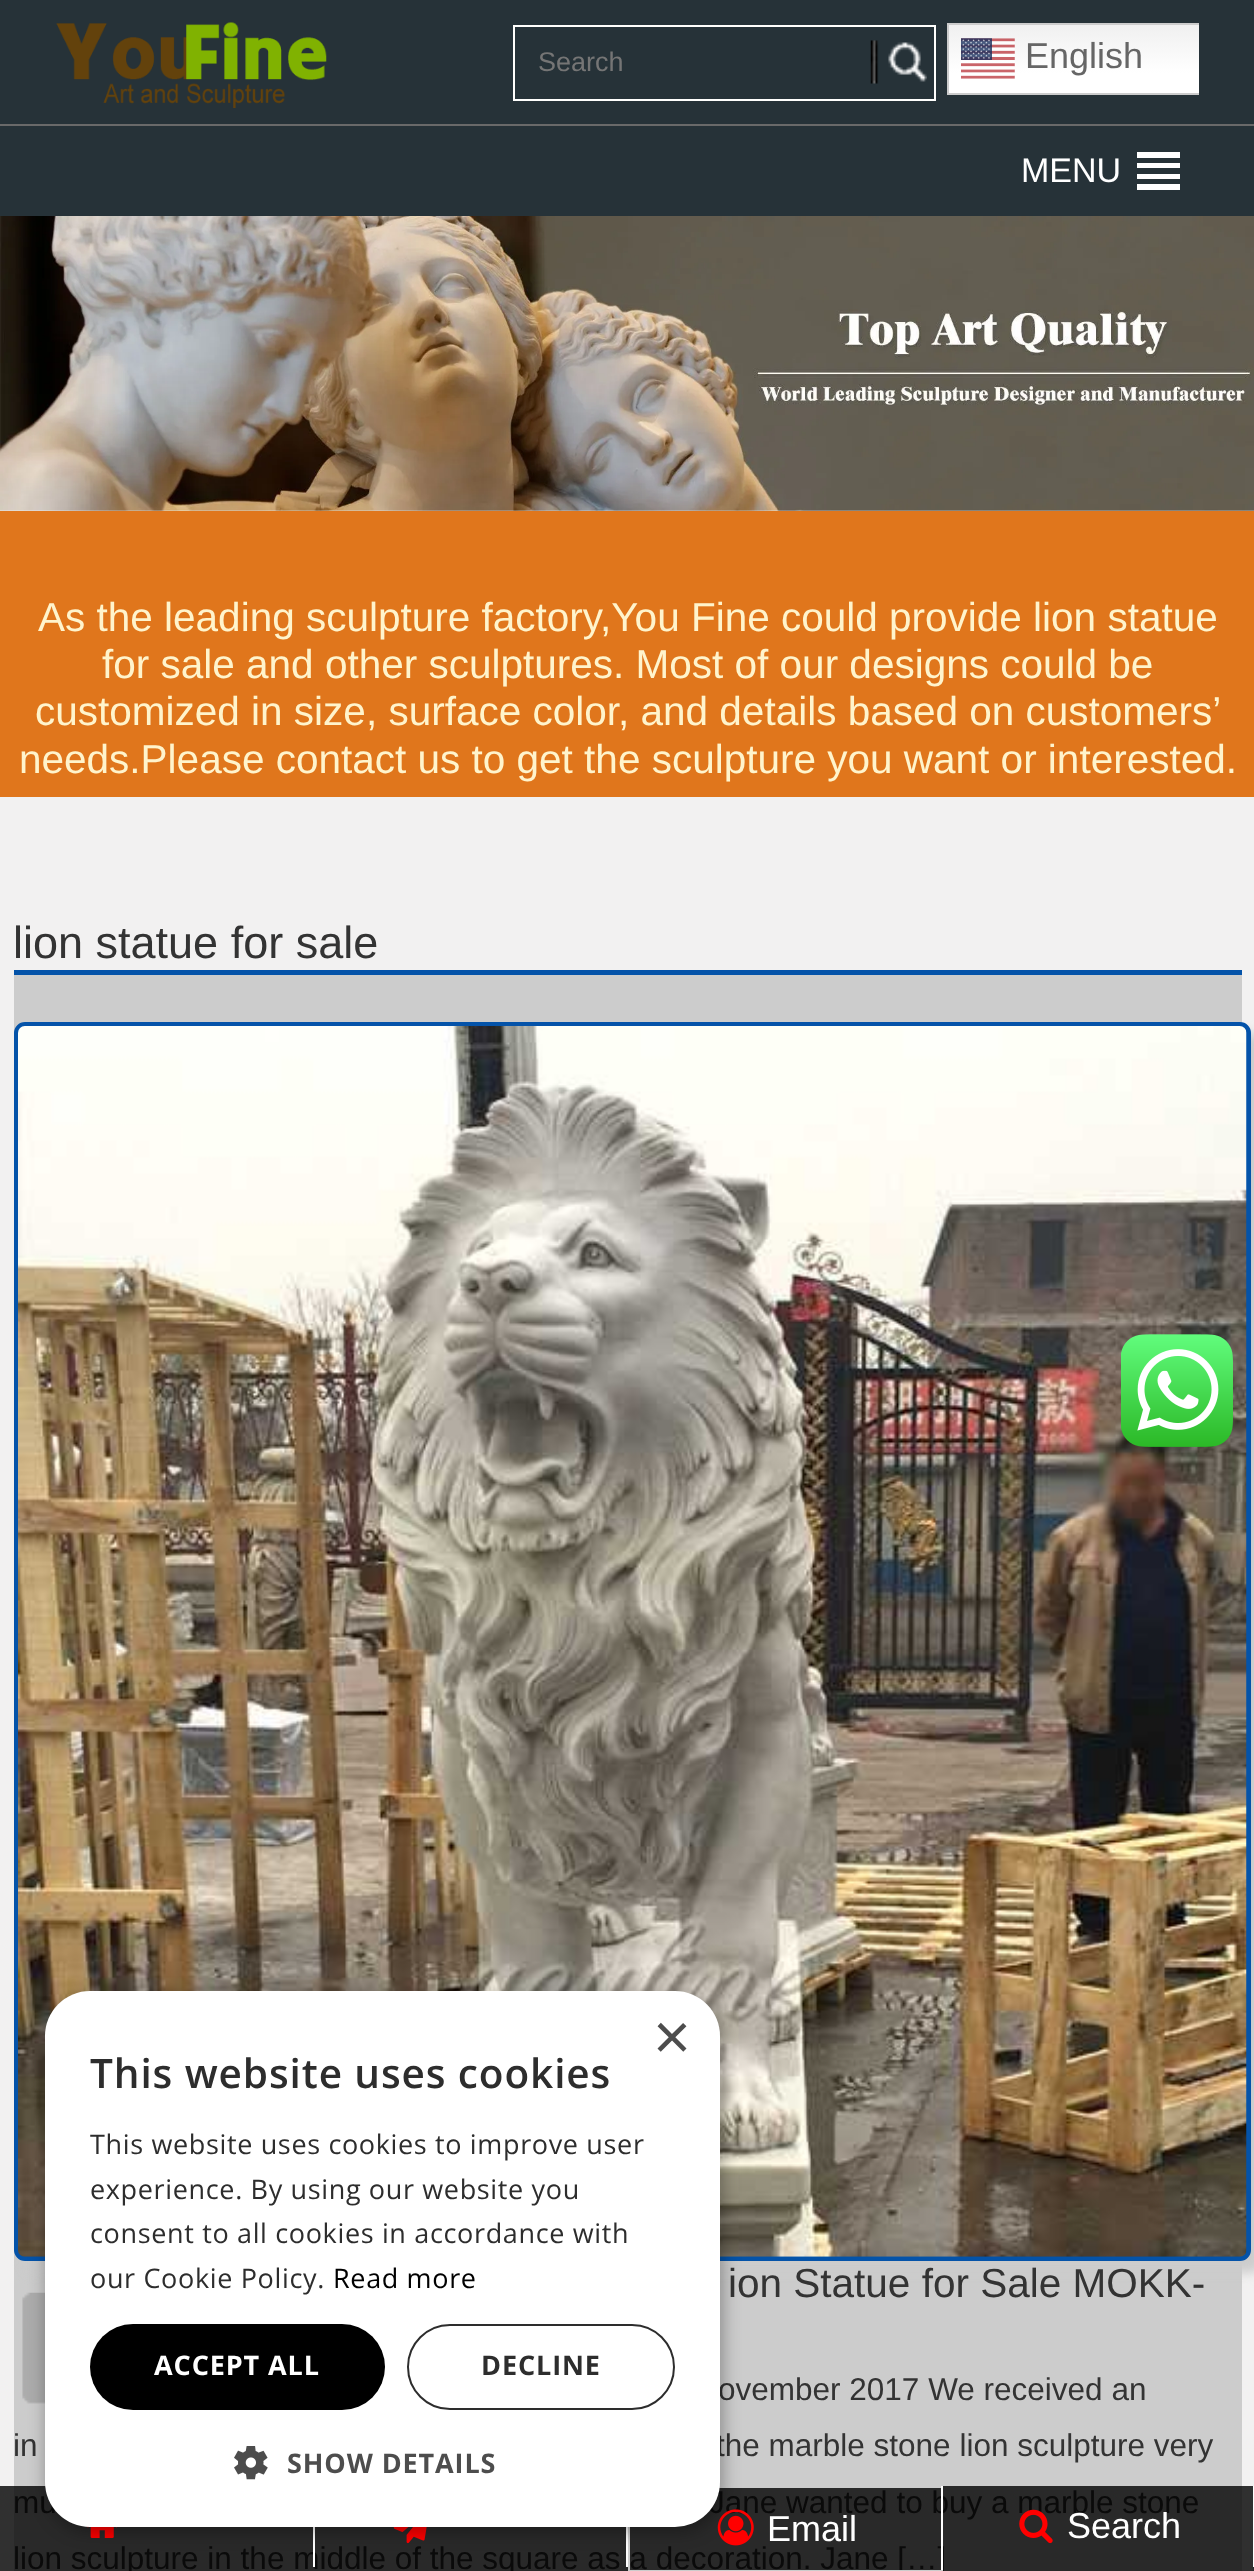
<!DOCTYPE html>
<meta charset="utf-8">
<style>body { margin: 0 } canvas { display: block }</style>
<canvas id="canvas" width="1254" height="2571"></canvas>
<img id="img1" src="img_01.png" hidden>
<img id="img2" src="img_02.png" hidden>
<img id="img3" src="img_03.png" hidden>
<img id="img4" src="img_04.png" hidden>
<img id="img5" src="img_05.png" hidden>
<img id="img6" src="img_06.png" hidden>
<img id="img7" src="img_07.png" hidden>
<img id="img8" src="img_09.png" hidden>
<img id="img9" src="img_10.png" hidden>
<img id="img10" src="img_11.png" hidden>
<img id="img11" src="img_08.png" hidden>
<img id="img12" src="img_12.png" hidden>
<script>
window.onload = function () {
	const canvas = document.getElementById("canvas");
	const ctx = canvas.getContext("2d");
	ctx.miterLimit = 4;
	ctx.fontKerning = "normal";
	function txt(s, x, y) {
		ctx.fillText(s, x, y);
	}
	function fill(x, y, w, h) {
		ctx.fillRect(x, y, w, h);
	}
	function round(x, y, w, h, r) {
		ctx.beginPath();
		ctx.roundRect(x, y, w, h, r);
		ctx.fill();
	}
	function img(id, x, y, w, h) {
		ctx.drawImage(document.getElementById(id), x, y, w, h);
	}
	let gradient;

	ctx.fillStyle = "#FFFFFF";
	fill(0, 0, 1254, 2571);
	ctx.fillStyle = "#263238";
	fill(0, 0, 1254, 216);
	ctx.strokeStyle = "#FFFFFD";
	ctx.lineWidth = 2;
	ctx.strokeRect(514, 26, 421, 74);
	img("img1", 870, 40, 57, 44);
	gradient = ctx.createLinearGradient(1142, 22, 1142, 95);
	gradient.addColorStop(0, "#EFEFEF");
	gradient.addColorStop(0.7, "#FFFFFF");
	ctx.fillStyle = gradient;
	fill(949, 25, 250, 68);
	ctx.save();
	ctx.beginPath();
	ctx.rect(947, 23, 252, 72);
	ctx.clip();
	ctx.strokeStyle = "#CCCCCC";
	ctx.strokeRect(948, 24, 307, 70);
	ctx.restore();
	img("img2", 961, 38, 54, 41);
	ctx.fillStyle = "#696969";
	fill(0, 124, 1254, 2);
	img("img3", 56, 22, 271, 86);
	ctx.fillStyle = "#FFFFFF";
	ctx.beginPath();
	ctx.moveTo(1137, 152);
	ctx.lineTo(1180, 152);
	ctx.lineTo(1180, 158);
	ctx.lineTo(1137, 158);
	ctx.closePath();
	ctx.moveTo(1137, 163);
	ctx.lineTo(1180, 163);
	ctx.lineTo(1180, 168);
	ctx.lineTo(1137, 168);
	ctx.closePath();
	ctx.moveTo(1137, 174);
	ctx.lineTo(1180, 174);
	ctx.lineTo(1180, 179);
	ctx.lineTo(1137, 179);
	ctx.closePath();
	ctx.moveTo(1137, 184);
	ctx.lineTo(1180, 184);
	ctx.lineTo(1180, 190);
	ctx.lineTo(1137, 190);
	ctx.closePath();
	ctx.fill();
	img("img4", 0, 216, 1254, 295);
	ctx.fillStyle = "#F2F1F1";
	fill(0, 797, 1254, 1689);
	ctx.fillStyle = "#303030";
	fill(0, 2486, 1254, 85);
	ctx.fillStyle = "#E0761C";
	fill(0, 511, 1254, 286);
	ctx.fillStyle = "#CCCCCC";
	fill(14, 975, 1228, 1511);
	ctx.fillStyle = "#292929";
	fill(14, 2486, 1228, 85);
	ctx.fillStyle = "#0453A9";
	fill(14, 970, 1228, 5);
	ctx.fillStyle = "#CCCCCC";
	ctx.filter = "blur(5.5px)";
	ctx.beginPath();
	ctx.roundRect(25, 1033, 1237, 1240, 11);
	ctx.fill();
	ctx.filter = "none";
	ctx.beginPath();
	ctx.roundRect(16.5, 1024.5, 1232, 1234, 8.5);
	ctx.strokeStyle = "#0453A9";
	ctx.lineWidth = 5;
	ctx.stroke();
	img("img5", 18, 1026, 1229, 1231);
	img("img6", 22, 2292, 23, 112);
	img("img7", 1121, 1334, 112, 113);
	img("img8", 86, 2526, 31, 12);
	img("img9", 393, 2527, 34, 17);
	fill(719, 2486, 224, 2);
	ctx.fillStyle = "#FFFFFF";
	fill(1253, 2486, 1, 81);
	ctx.font = "27px Liberation Sans";
	ctx.fillStyle = "#757575";
	txt("Search", 538, 71);
	ctx.font = "36px Liberation Sans";
	ctx.fillStyle = "#666666";
	txt("English", 1025, 68);
	ctx.font = "34px Liberation Sans";
	ctx.fillStyle = "#FFFFFF";
	txt("MENU", 1021, 182);
	ctx.font = "40.5px Liberation Sans";
	ctx.fillStyle = "#FFF4CC";
	txt("As the leading sculpture factory,You Fine could provide lion statue", 38, 631);
	txt("for sale and other sculptures. Most of our designs could be", 102, 678);
	txt("customized in size, surface color, and details based on customers’", 35, 725);
	txt("needs.Please contact us to get the sculpture you want or interested.", 19, 773);
	ctx.font = "45px Liberation Sans";
	ctx.fillStyle = "#333333";
	txt("lion statue for sale", 13, 958);
	ctx.font = "40.5px Liberation Sans";
	txt("ion Statue for Sale MOKK-", 728, 2297);
	ctx.font = "31.5px Liberation Sans";
	txt("ovember 2017 We received an", 718, 2400);
	txt("in", 13, 2456);
	txt("the marble stone lion sculpture very", 716, 2456);
	ctx.fillStyle = "#0A0A0A";
	txt("mu", 13, 2513);
	txt("Jane wanted to buy a marble stone", 709, 2513);
	txt("lion sculpture in the middle of the square as a decoration. Jane […]", 13, 2569);
	ctx.fillStyle = "#FFFFFF";
	fill(313, 2527, 2, 40);
	fill(626, 2527, 2, 40);
	fill(941, 2486, 2, 85);
	ctx.fillStyle = "#CCCCCC";
	fill(628, 2570, 315, 1);
	fill(628, 2527, 2, 44);
	img("img10", 717, 2509, 37, 37);
	ctx.fillStyle = "rgba(0, 0, 0, 0.35)";
	ctx.filter = "blur(9px)";
	ctx.beginPath();
	ctx.roundRect(47, 1996, 675, 535, 45);
	ctx.fill();
	ctx.filter = "none";
	ctx.fillStyle = "#FFFFFF";
	round(45, 1991, 675, 536, 45);
	ctx.font = "65px Liberation Sans";
	ctx.fillStyle = "#4D4D4D";
	txt("×", 653, 2059);
	img("img11", 234, 2446, 34, 34);
	ctx.letterSpacing = "0.9px";
	ctx.font = "bold 27px Open Sans";
	txt("SHOW DETAILS", 287, 2473);
	ctx.beginPath();
	ctx.roundRect(408, 2325, 266, 84, 42);
	ctx.strokeStyle = "#2D2D2D";
	ctx.lineWidth = 2;
	ctx.stroke();
	ctx.fillStyle = "#2D2D2D";
	txt("DECLINE", 481, 2375);
	ctx.fillStyle = "#000000";
	round(90, 2324, 295, 86, 43);
	ctx.fillStyle = "#FFFFFF";
	txt("ACCEPT ALL", 154, 2375);
	ctx.letterSpacing = "0.65px";
	ctx.font = "27px Open Sans";
	ctx.fillStyle = "#000000";
	txt("Read more", 333, 2288);
	ctx.fillStyle = "#2D2D2D";
	txt("our Cookie Policy.", 90, 2288);
	txt("consent to all cookies in accordance with", 90, 2243);
	txt("experience. By using our website you", 90, 2199);
	txt("This website uses cookies to improve user", 90, 2154);
	ctx.letterSpacing = "0.9px";
	ctx.font = "600 40.5px Open Sans";
	txt("This website uses cookies", 90, 2088);
	ctx.letterSpacing = "0px";
	ctx.font = "36px Liberation Sans";
	ctx.fillStyle = "#FFFFFF";
	txt("Email", 767, 2541);
	img("img12", 1019, 2509, 34, 35);
	txt("Search", 1067, 2538);
};
</script>
